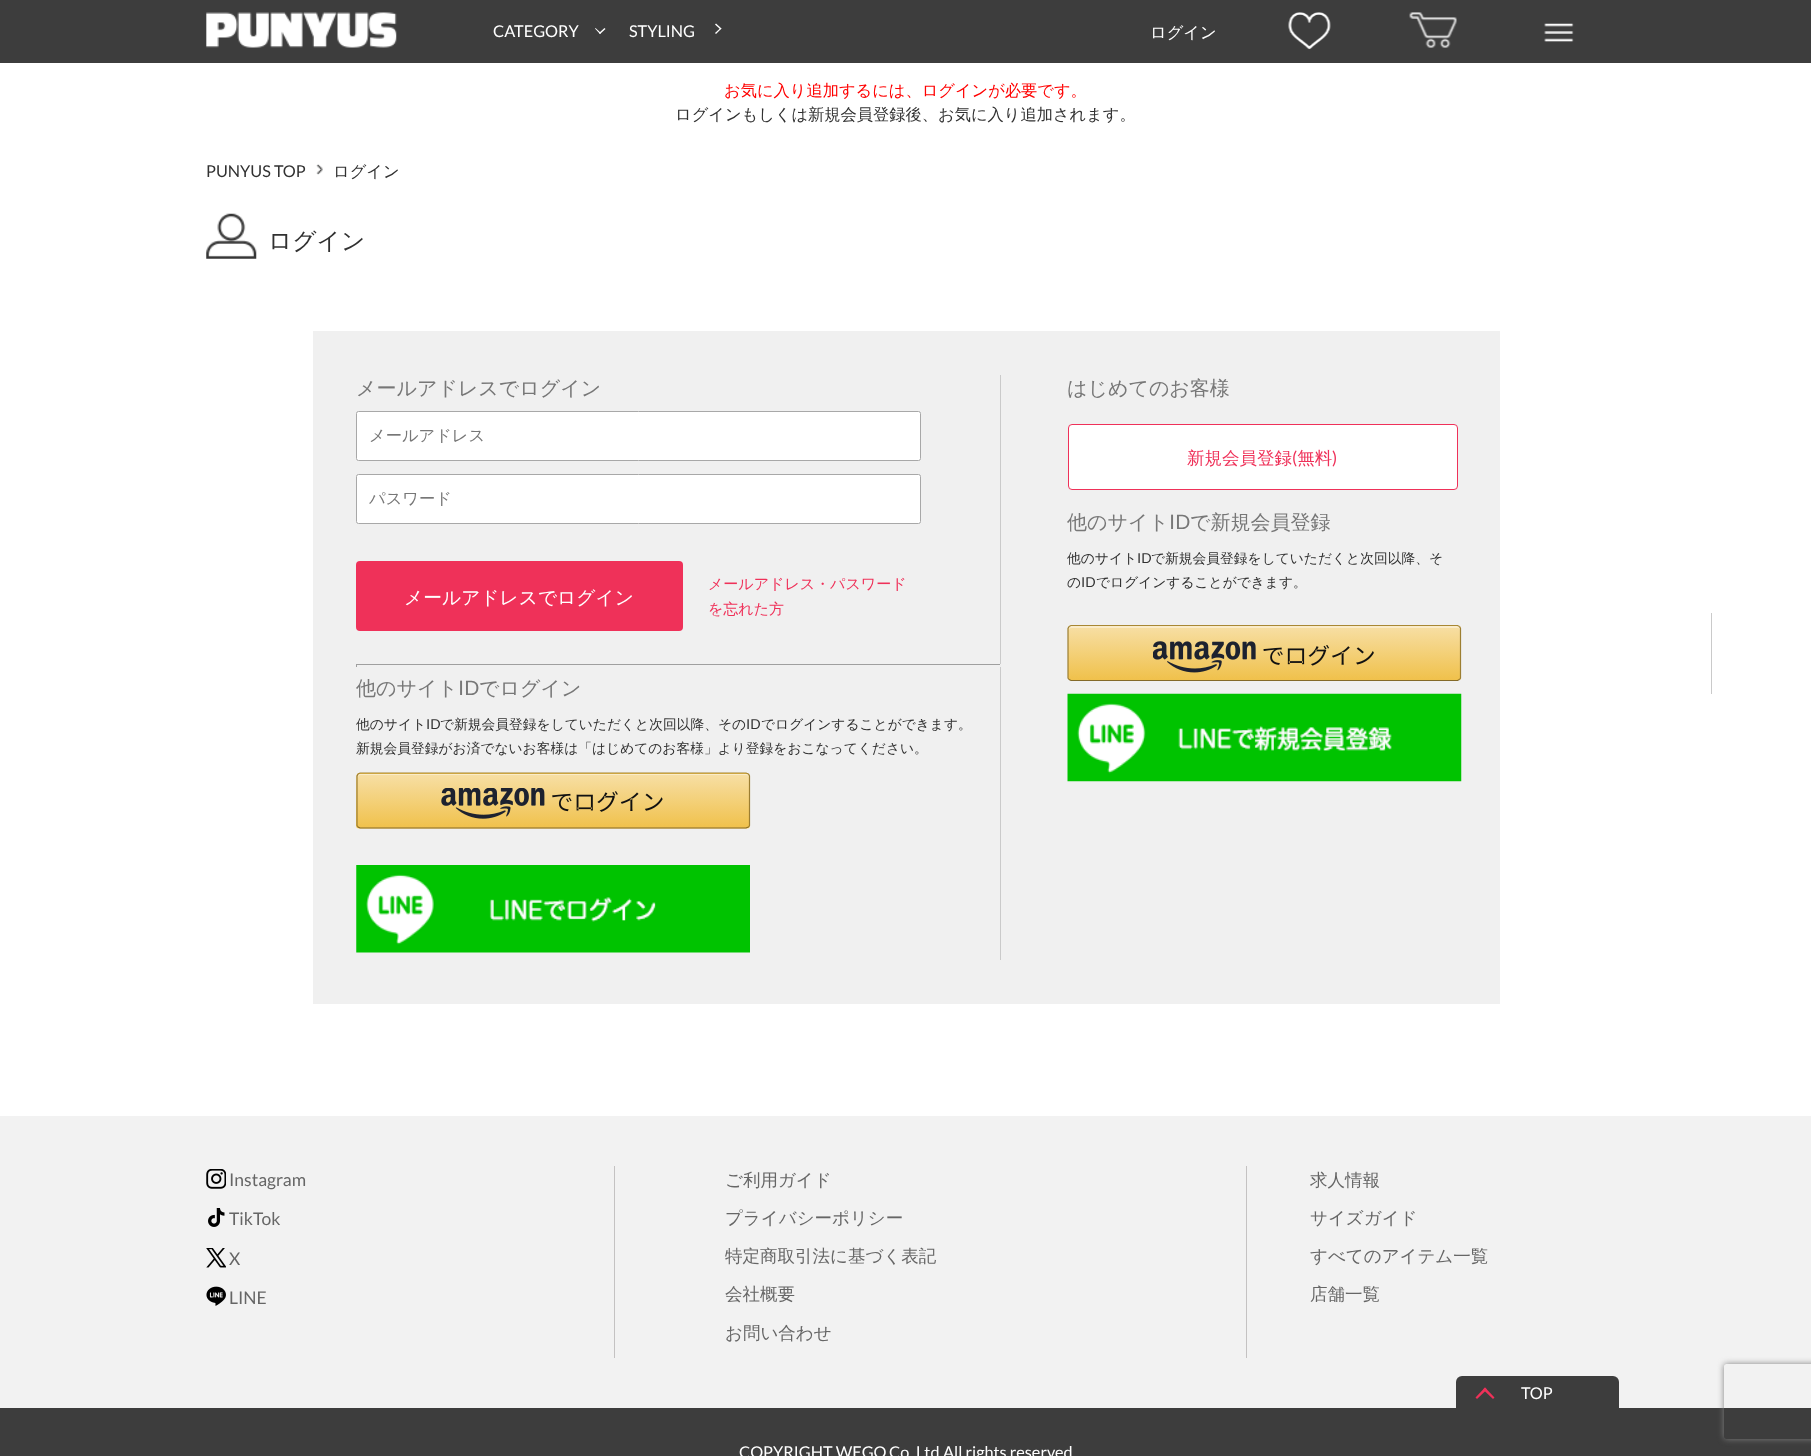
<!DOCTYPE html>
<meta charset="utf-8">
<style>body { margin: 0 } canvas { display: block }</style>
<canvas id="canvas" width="1811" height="1456"></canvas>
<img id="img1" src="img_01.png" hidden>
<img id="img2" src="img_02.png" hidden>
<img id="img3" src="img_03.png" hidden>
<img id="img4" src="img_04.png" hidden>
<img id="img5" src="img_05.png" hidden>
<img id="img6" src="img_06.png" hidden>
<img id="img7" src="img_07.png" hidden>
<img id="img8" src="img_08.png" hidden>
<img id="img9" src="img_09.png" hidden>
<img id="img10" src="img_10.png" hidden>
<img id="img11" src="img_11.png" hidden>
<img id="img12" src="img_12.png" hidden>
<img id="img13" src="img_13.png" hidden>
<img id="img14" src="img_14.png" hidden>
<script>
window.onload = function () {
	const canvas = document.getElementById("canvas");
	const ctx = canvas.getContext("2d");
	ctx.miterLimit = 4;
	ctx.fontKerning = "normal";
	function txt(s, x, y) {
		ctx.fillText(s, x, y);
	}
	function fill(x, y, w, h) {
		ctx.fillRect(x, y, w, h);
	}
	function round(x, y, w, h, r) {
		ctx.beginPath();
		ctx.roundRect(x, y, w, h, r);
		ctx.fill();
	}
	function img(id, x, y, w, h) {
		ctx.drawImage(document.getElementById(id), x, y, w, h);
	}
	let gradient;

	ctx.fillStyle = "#FFFFFF";
	fill(0, 0, 1811, 1456);
	ctx.fillStyle = "#3D3D3D";
	fill(0, 0, 1811, 63);
	img("img1", 206, 12, 191, 36);
	ctx.fillStyle = "#FFFFFF";
	ctx.beginPath();
	ctx.moveTo(605.5, 29);
	ctx.lineTo(600, 34);
	ctx.lineTo(599, 33);
	ctx.lineTo(604.5, 28);
	ctx.closePath();
	ctx.fill();
	ctx.beginPath();
	ctx.moveTo(601, 33);
	ctx.lineTo(600, 34);
	ctx.lineTo(595, 28.5);
	ctx.lineTo(595.5, 28);
	ctx.closePath();
	ctx.fill();
	ctx.beginPath();
	ctx.moveTo(716, 23.5);
	ctx.lineTo(721.5, 28.5);
	ctx.lineTo(720.5, 29.5);
	ctx.lineTo(715, 24.5);
	ctx.closePath();
	ctx.fill();
	ctx.beginPath();
	ctx.moveTo(720.5, 28);
	ctx.lineTo(721.5, 28.5);
	ctx.lineTo(716, 34);
	ctx.lineTo(715, 33);
	ctx.closePath();
	ctx.fill();
	img("img2", 1288, 12, 43, 38);
	img("img3", 1409, 12, 48, 36);
	img("img4", 1544, 23, 30, 19);
	img("img5", 316, 164, 7, 11);
	img("img6", 206, 213, 51, 46);
	ctx.fillStyle = "#F0F0F0";
	fill(313, 331, 1187, 673);
	ctx.fillStyle = "#CACACA";
	fill(1000, 375, 1, 585);
	ctx.fillStyle = "#FFFFFF";
	ctx.beginPath();
	ctx.roundRect(356.5, 411.5, 564, 49, 2);
	ctx.fill();
	ctx.strokeStyle = "#A8A8A8";
	ctx.stroke();
	ctx.beginPath();
	ctx.roundRect(356.5, 474.5, 564, 49, 2);
	ctx.fill();
	ctx.stroke();
	ctx.fillStyle = "#EF3159";
	round(356, 561, 327, 70, 4);
	ctx.fillStyle = "#9F9F9F";
	fill(356, 664, 645, 1);
	ctx.fillStyle = "#EEEEEE";
	fill(1000, 664, 1, 3);
	ctx.fillStyle = "#9F9F9F";
	fill(356, 664, 1, 3);
	ctx.save();
	ctx.beginPath();
	ctx.roundRect(356, 773, 394, 56, 4);
	ctx.clip();
	gradient = ctx.createLinearGradient(553, 720, 553, 774);
	gradient.addColorStop(0, "#F7DFA5");
	gradient.addColorStop(1, "#F0C14B");
	ctx.fillStyle = gradient;
	fill(356, 773, 394, 1);
	gradient = ctx.createLinearGradient(553, 774, 553, 828);
	gradient.addColorStop(0, "#F7DFA5");
	gradient.addColorStop(1, "#F0C14B");
	ctx.fillStyle = gradient;
	fill(356, 774, 394, 54);
	gradient = ctx.createLinearGradient(553, 828, 553, 881);
	gradient.addColorStop(0, "#F7DFA5");
	gradient.addColorStop(1, "#F0C14B");
	ctx.fillStyle = gradient;
	fill(356, 828, 394, 1);
	ctx.restore();
	ctx.fillStyle = "#FAECC8";
	ctx.beginPath();
	ctx.moveTo(360, 775);
	ctx.lineTo(746, 775);
	ctx.bezierCurveTo(748, 775, 749, 776, 749, 778);
	ctx.lineTo(749, 775);
	ctx.lineTo(746, 774);
	ctx.lineTo(360, 774);
	ctx.bezierCurveTo(358, 774, 358, 776, 358, 778);
	ctx.bezierCurveTo(358, 776, 359, 775, 360, 775);
	ctx.closePath();
	ctx.fill();
	ctx.beginPath();
	ctx.moveTo(358, 774);
	ctx.lineTo(360, 773);
	ctx.lineTo(746, 773);
	ctx.lineTo(748.5, 774);
	ctx.strokeStyle = "#A88734";
	ctx.lineWidth = 1.2;
	ctx.stroke();
	ctx.beginPath();
	ctx.moveTo(748.5, 774);
	ctx.lineTo(749.5, 776);
	ctx.lineTo(749.5, 825.5);
	ctx.lineTo(748.5, 827);
	ctx.strokeStyle = "#9C7E31";
	ctx.stroke();
	ctx.beginPath();
	ctx.moveTo(748.5, 827);
	ctx.lineTo(746, 828);
	ctx.lineTo(360, 828);
	ctx.lineTo(358, 827);
	ctx.strokeStyle = "#846A29";
	ctx.stroke();
	ctx.beginPath();
	ctx.moveTo(358, 827);
	ctx.lineTo(357, 825.5);
	ctx.lineTo(357, 776);
	ctx.lineTo(358, 774);
	ctx.strokeStyle = "#9C7E31";
	ctx.stroke();
	img("img7", 441, 788, 222, 31);
	img("img8", 356, 865, 394, 88);
	ctx.fillStyle = "#FFFFFF";
	ctx.beginPath();
	ctx.roundRect(1068.5, 424.5, 389, 65, 3.5);
	ctx.fill();
	ctx.strokeStyle = "#EF3159";
	ctx.lineWidth = 1;
	ctx.stroke();
	ctx.fillStyle = "#CACACA";
	fill(1711, 613, 1, 81);
	ctx.save();
	ctx.beginPath();
	ctx.roundRect(1068, 625, 393, 56, 4);
	ctx.clip();
	gradient = ctx.createLinearGradient(1264, 626, 1264, 680);
	gradient.addColorStop(0, "#F7DFA5");
	gradient.addColorStop(1, "#F0C14B");
	ctx.fillStyle = gradient;
	fill(1068, 626, 393, 54);
	ctx.restore();
	ctx.fillStyle = "rgba(255, 255, 255, 0.4)";
	ctx.beginPath();
	ctx.moveTo(1071, 628);
	ctx.lineTo(1458, 628);
	ctx.bezierCurveTo(1459, 628, 1460, 629, 1460, 630);
	ctx.lineTo(1460, 627);
	ctx.lineTo(1458, 626);
	ctx.lineTo(1072, 626);
	ctx.bezierCurveTo(1069, 626, 1069, 628, 1069, 630);
	ctx.bezierCurveTo(1069, 629, 1070, 628, 1071, 628);
	ctx.closePath();
	ctx.fill();
	ctx.beginPath();
	ctx.moveTo(1069, 626.5);
	ctx.lineTo(1071, 625.5);
	ctx.lineTo(1457.5, 625.5);
	ctx.lineTo(1459.5, 626.5);
	ctx.strokeStyle = "#A88734";
	ctx.lineWidth = 1.2;
	ctx.stroke();
	ctx.beginPath();
	ctx.moveTo(1459.5, 626.5);
	ctx.lineTo(1460.5, 628.5);
	ctx.lineTo(1460.5, 678);
	ctx.lineTo(1459.5, 679.5);
	ctx.strokeStyle = "#9C7E31";
	ctx.stroke();
	ctx.beginPath();
	ctx.moveTo(1459.5, 679.5);
	ctx.lineTo(1457.5, 680.5);
	ctx.lineTo(1071, 680.5);
	ctx.lineTo(1069, 679.5);
	ctx.strokeStyle = "#846A29";
	ctx.stroke();
	ctx.beginPath();
	ctx.moveTo(1069, 679.5);
	ctx.lineTo(1068, 678);
	ctx.lineTo(1068, 628.5);
	ctx.lineTo(1069, 626.5);
	ctx.strokeStyle = "#9C7E31";
	ctx.stroke();
	img("img9", 1153, 641, 221, 32);
	img("img10", 1067, 693, 395, 89);
	ctx.fillStyle = "#F2F2F2";
	fill(0, 1116, 1811, 292);
	img("img11", 206, 1169, 20, 20);
	img("img12", 208, 1208, 17, 19);
	img("img13", 206, 1248, 20, 20);
	img("img14", 206, 1286, 20, 20);
	ctx.fillStyle = "#C4C2C2";
	fill(614, 1166, 1, 192);
	fill(1246, 1166, 1, 192);
	ctx.fillStyle = "#3D3D3D";
	fill(0, 1408, 1811, 48);
	ctx.beginPath();
	ctx.roundRect(1456, 1376, 163, 32, [6, 6, 0, 0]);
	ctx.fill();
	ctx.fillStyle = "#EF3159";
	ctx.beginPath();
	ctx.moveTo(1475.5, 1397.5);
	ctx.lineTo(1485, 1387.5);
	ctx.lineTo(1487, 1389.5);
	ctx.lineTo(1477, 1399);
	ctx.closePath();
	ctx.fill();
	ctx.beginPath();
	ctx.moveTo(1483, 1389.5);
	ctx.lineTo(1485, 1387.5);
	ctx.lineTo(1494.5, 1397.5);
	ctx.lineTo(1493, 1399);
	ctx.closePath();
	ctx.fill();
	ctx.save();
	ctx.beginPath();
	ctx.moveTo(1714, 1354);
	ctx.lineTo(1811, 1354);
	ctx.lineTo(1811, 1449);
	ctx.lineTo(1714, 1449);
	ctx.closePath();
	ctx.moveTo(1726.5, 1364);
	ctx.lineTo(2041.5, 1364);
	ctx.bezierCurveTo(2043, 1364, 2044, 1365, 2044, 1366.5);
	ctx.lineTo(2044, 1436.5);
	ctx.bezierCurveTo(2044, 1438, 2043, 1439, 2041.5, 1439);
	ctx.lineTo(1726.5, 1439);
	ctx.bezierCurveTo(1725, 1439, 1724, 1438, 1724, 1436.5);
	ctx.lineTo(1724, 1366.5);
	ctx.bezierCurveTo(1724, 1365, 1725, 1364, 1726.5, 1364);
	ctx.closePath();
	ctx.clip("evenodd");
	ctx.fillStyle = "#808080";
	ctx.filter = "blur(3px)";
	ctx.beginPath();
	ctx.roundRect(1724, 1364, 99, 75, 2.5);
	ctx.fill();
	ctx.filter = "none";
	ctx.restore();
	ctx.font = "16.25px Lato";
	ctx.fillStyle = "#FFFFFF";
	txt("CATEGORY", 493, 37);
	txt("STYLING", 629, 37);
	ctx.font = "500 16.25px WenQuanYi Zen Hei";
	txt("ログイン", 1150, 38);
	ctx.fillStyle = "#FF0000";
	txt("お気に入り追加するには、ログインが必要です。", 724, 96);
	ctx.fillStyle = "#313131";
	txt("ログインもしくは新規会員登録後、お気に入り追加されます。", 675, 120);
	ctx.font = "16.25px Lato";
	txt("PUNYUS TOP", 206, 177);
	ctx.font = "500 16.25px WenQuanYi Zen Hei";
	txt("ログイン", 333, 177);
	ctx.font = "500 23.75px WenQuanYi Zen Hei";
	txt("ログイン", 268, 249);
	ctx.font = "500 20px WenQuanYi Zen Hei";
	ctx.fillStyle = "#777777";
	txt("メールアドレスでログイン", 356, 395);
	ctx.font = "500 16.25px WenQuanYi Zen Hei";
	txt("メールアドレス", 369, 441);
	txt("パスワード", 369, 504);
	ctx.font = "500 18.75px WenQuanYi Zen Hei";
	ctx.fillStyle = "#FFFFFF";
	txt("メールアドレスでログイン", 404, 604);
	ctx.font = "500 15px WenQuanYi Zen Hei";
	ctx.fillStyle = "#EF3159";
	txt("メールアドレス・パスワード", 708, 589);
	txt("を忘れた方", 708, 614);
	ctx.font = "500 20px WenQuanYi Zen Hei";
	ctx.fillStyle = "#777777";
	txt("他のサイト", 356, 695);
	ctx.font = "20px Lato";
	txt("ID", 458, 695);
	ctx.font = "500 20px WenQuanYi Zen Hei";
	txt("でログイン", 479, 695);
	ctx.font = "500 13.75px WenQuanYi Zen Hei";
	ctx.fillStyle = "#313131";
	txt("他のサイト", 356, 729);
	ctx.font = "13.75px Lato";
	txt("ID", 426, 729);
	ctx.font = "500 13.75px WenQuanYi Zen Hei";
	txt("で新規会員登録をしていただくと次回以降、その", 440, 729);
	ctx.font = "13.75px Lato";
	txt("ID", 746, 729);
	ctx.font = "500 13.75px WenQuanYi Zen Hei";
	txt("でログインすることができます。", 761, 729);
	txt("新規会員登録がお済でないお客様は「はじめてのお客様」より登録をおこなってください。", 356, 753);
	ctx.font = "500 20px WenQuanYi Zen Hei";
	ctx.fillStyle = "#777777";
	txt("はじめてのお客様", 1067, 395);
	ctx.font = "500 17.5px WenQuanYi Zen Hei";
	ctx.fillStyle = "#EF3159";
	txt("新規会員登録 無料", 1187, 464);
	ctx.font = "17.5px Lato";
	txt("(", 1292, 464);
	txt(")", 1332, 464);
	ctx.font = "500 20px WenQuanYi Zen Hei";
	ctx.fillStyle = "#777777";
	txt("他のサイト", 1067, 529);
	ctx.font = "20px Lato";
	txt("ID", 1169, 529);
	ctx.font = "500 20px WenQuanYi Zen Hei";
	txt("で新規会員登録", 1190, 529);
	ctx.font = "500 13.75px WenQuanYi Zen Hei";
	ctx.fillStyle = "#313131";
	txt("他のサイト", 1067, 563);
	ctx.font = "13.75px Lato";
	txt("ID", 1137, 563);
	ctx.font = "500 13.75px WenQuanYi Zen Hei";
	txt("で新規会員登録をしていただくと次回以降、そ", 1151, 563);
	txt("の", 1067, 587);
	ctx.font = "13.75px Lato";
	txt("ID", 1081, 587);
	ctx.font = "500 13.75px WenQuanYi Zen Hei";
	txt("でログインすることができます。", 1096, 587);
	ctx.font = "17.5px Lato";
	ctx.fillStyle = "#666666";
	txt("Instagram", 229, 1186);
	txt("TikTok", 229, 1225);
	txt("X", 229, 1265);
	txt("LINE", 229, 1304);
	ctx.font = "500 17.5px WenQuanYi Zen Hei";
	txt("ご利用ガイド", 725, 1186);
	txt("プライバシーポリシー", 725, 1224);
	txt("特定商取引法に基づく表記", 725, 1262);
	txt("会社概要", 725, 1300);
	txt("お問い合わせ", 725, 1339);
	txt("求人情報", 1310, 1186);
	txt("サイズガイド", 1310, 1224);
	txt("すべてのアイテム一覧", 1310, 1262);
	txt("店舗一覧", 1310, 1300);
	ctx.font = "16.25px Lato";
	ctx.fillStyle = "#FFFFFF";
	txt("TOP", 1521, 1399);
	txt("COPYRIGHT WEGO.Co", 739, 1458);
	txt("Ltd.All rights reserved", 916, 1458);
};
</script>
